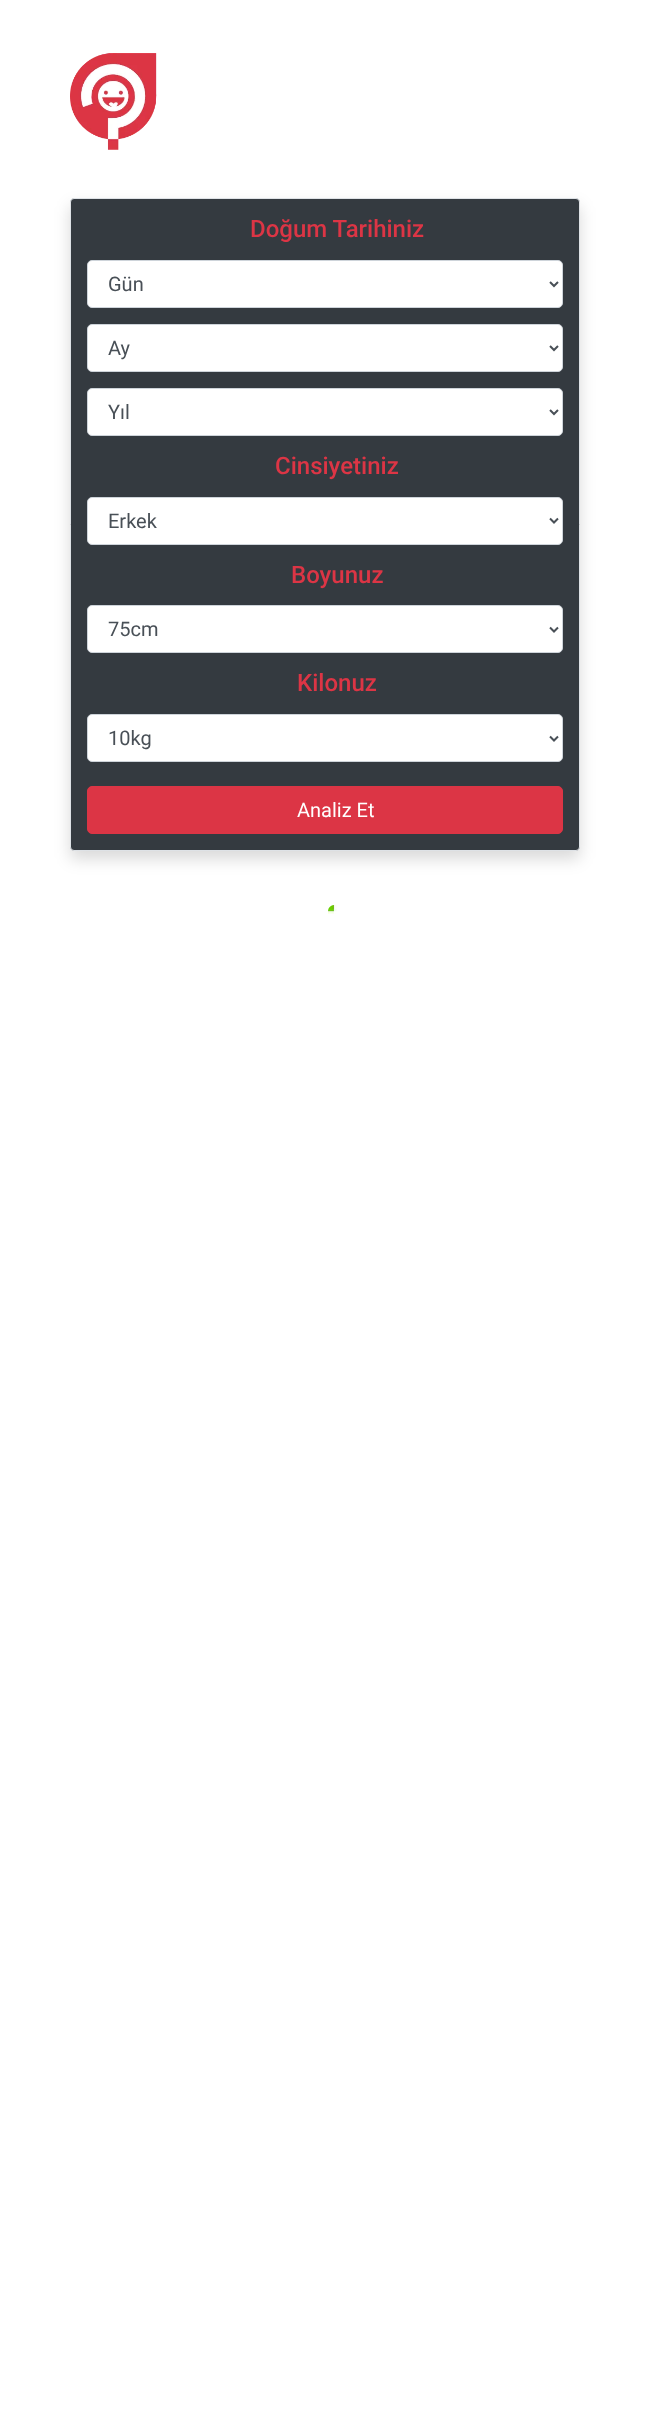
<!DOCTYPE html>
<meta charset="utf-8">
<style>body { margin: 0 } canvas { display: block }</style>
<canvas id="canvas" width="650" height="2419"></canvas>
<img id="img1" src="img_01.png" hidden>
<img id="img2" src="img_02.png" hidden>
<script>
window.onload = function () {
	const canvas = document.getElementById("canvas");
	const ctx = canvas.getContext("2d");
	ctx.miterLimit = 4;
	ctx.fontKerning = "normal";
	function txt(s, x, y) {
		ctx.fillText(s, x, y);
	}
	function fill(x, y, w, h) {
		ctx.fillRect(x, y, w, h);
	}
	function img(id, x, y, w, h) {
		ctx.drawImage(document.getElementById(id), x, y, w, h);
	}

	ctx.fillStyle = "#FFFFFF";
	fill(0, 0, 650, 2419);
	img("img1", 70, 53, 87, 97);
	ctx.fillStyle = "rgba(0, 0, 0, 0.15)";
	ctx.filter = "blur(8px)";
	ctx.beginPath();
	ctx.roundRect(70, 206, 510, 653, 4);
	ctx.fill();
	ctx.filter = "none";
	ctx.fillStyle = "#343A40";
	ctx.beginPath();
	ctx.roundRect(70.5, 198.5, 509, 652, 3.5);
	ctx.fill();
	ctx.strokeStyle = "#DEE2E6";
	ctx.stroke();
	ctx.fillStyle = "#FFFFFF";
	ctx.beginPath();
	ctx.roundRect(87.5, 260.5, 475, 47, 4.5);
	ctx.fill();
	ctx.strokeStyle = "#CED4DA";
	ctx.stroke();
	ctx.beginPath();
	ctx.moveTo(550, 282);
	ctx.lineTo(554, 286);
	ctx.lineTo(558, 282);
	ctx.strokeStyle = "#495057";
	ctx.lineWidth = 2;
	ctx.stroke();
	ctx.beginPath();
	ctx.roundRect(87.5, 324.5, 475, 47, 4.5);
	ctx.fill();
	ctx.strokeStyle = "#CED4DA";
	ctx.lineWidth = 1;
	ctx.stroke();
	ctx.beginPath();
	ctx.moveTo(550, 346);
	ctx.lineTo(554, 350);
	ctx.lineTo(558, 346);
	ctx.strokeStyle = "#495057";
	ctx.lineWidth = 2;
	ctx.stroke();
	ctx.beginPath();
	ctx.roundRect(87.5, 388.5, 475, 47, 4.5);
	ctx.fill();
	ctx.strokeStyle = "#CED4DA";
	ctx.lineWidth = 1;
	ctx.stroke();
	ctx.beginPath();
	ctx.moveTo(550, 410);
	ctx.lineTo(554, 414);
	ctx.lineTo(558, 410);
	ctx.strokeStyle = "#495057";
	ctx.lineWidth = 2;
	ctx.stroke();
	ctx.beginPath();
	ctx.roundRect(87.5, 497.5, 475, 47, 4.5);
	ctx.fill();
	ctx.strokeStyle = "#CED4DA";
	ctx.lineWidth = 1;
	ctx.stroke();
	ctx.beginPath();
	ctx.moveTo(550, 518.5);
	ctx.lineTo(554, 522.5);
	ctx.lineTo(558, 518.5);
	ctx.strokeStyle = "#495057";
	ctx.lineWidth = 2;
	ctx.stroke();
	ctx.beginPath();
	ctx.roundRect(87.5, 605.5, 475, 47, 4.5);
	ctx.fill();
	ctx.strokeStyle = "#CED4DA";
	ctx.lineWidth = 1;
	ctx.stroke();
	ctx.beginPath();
	ctx.moveTo(550, 627.5);
	ctx.lineTo(554, 631.5);
	ctx.lineTo(558, 627.5);
	ctx.strokeStyle = "#495057";
	ctx.lineWidth = 2;
	ctx.stroke();
	ctx.beginPath();
	ctx.roundRect(87.5, 714.5, 475, 47, 4.5);
	ctx.fill();
	ctx.strokeStyle = "#CED4DA";
	ctx.lineWidth = 1;
	ctx.stroke();
	ctx.beginPath();
	ctx.moveTo(550, 736.5);
	ctx.lineTo(554, 740.5);
	ctx.lineTo(558, 736.5);
	ctx.strokeStyle = "#495057";
	ctx.lineWidth = 2;
	ctx.stroke();
	ctx.fillStyle = "#DC3545";
	ctx.beginPath();
	ctx.roundRect(87.5, 786.5, 475, 47, 4.5);
	ctx.fill();
	ctx.strokeStyle = "#DC3545";
	ctx.lineWidth = 1;
	ctx.stroke();
	img("img2", 328, 905, 9, 9);
	ctx.font = "500 24px Roboto";
	txt("Doğum Tarihiniz", 250, 237);
	ctx.font = "20px Roboto";
	ctx.fillStyle = "#495057";
	txt("Gün", 108, 291);
	txt("Ay", 108, 355);
	txt("Yıl", 108, 419);
	ctx.font = "500 24px Roboto";
	ctx.fillStyle = "#DC3545";
	txt("Cinsiyetiniz", 275, 474);
	ctx.font = "20px Roboto";
	ctx.fillStyle = "#495057";
	txt("Erkek", 108, 528);
	ctx.font = "500 24px Roboto";
	ctx.fillStyle = "#DC3545";
	txt("Boyunuz", 291, 583);
	ctx.font = "20px Roboto";
	ctx.fillStyle = "#495057";
	txt("75cm", 108, 636);
	ctx.font = "500 24px Roboto";
	ctx.fillStyle = "#DC3545";
	txt("Kilonuz", 297, 691);
	ctx.font = "20px Roboto";
	ctx.fillStyle = "#495057";
	txt("10kg", 108, 745);
	ctx.fillStyle = "#FFFFFF";
	txt("Analiz Et", 297, 817);
};
</script>
